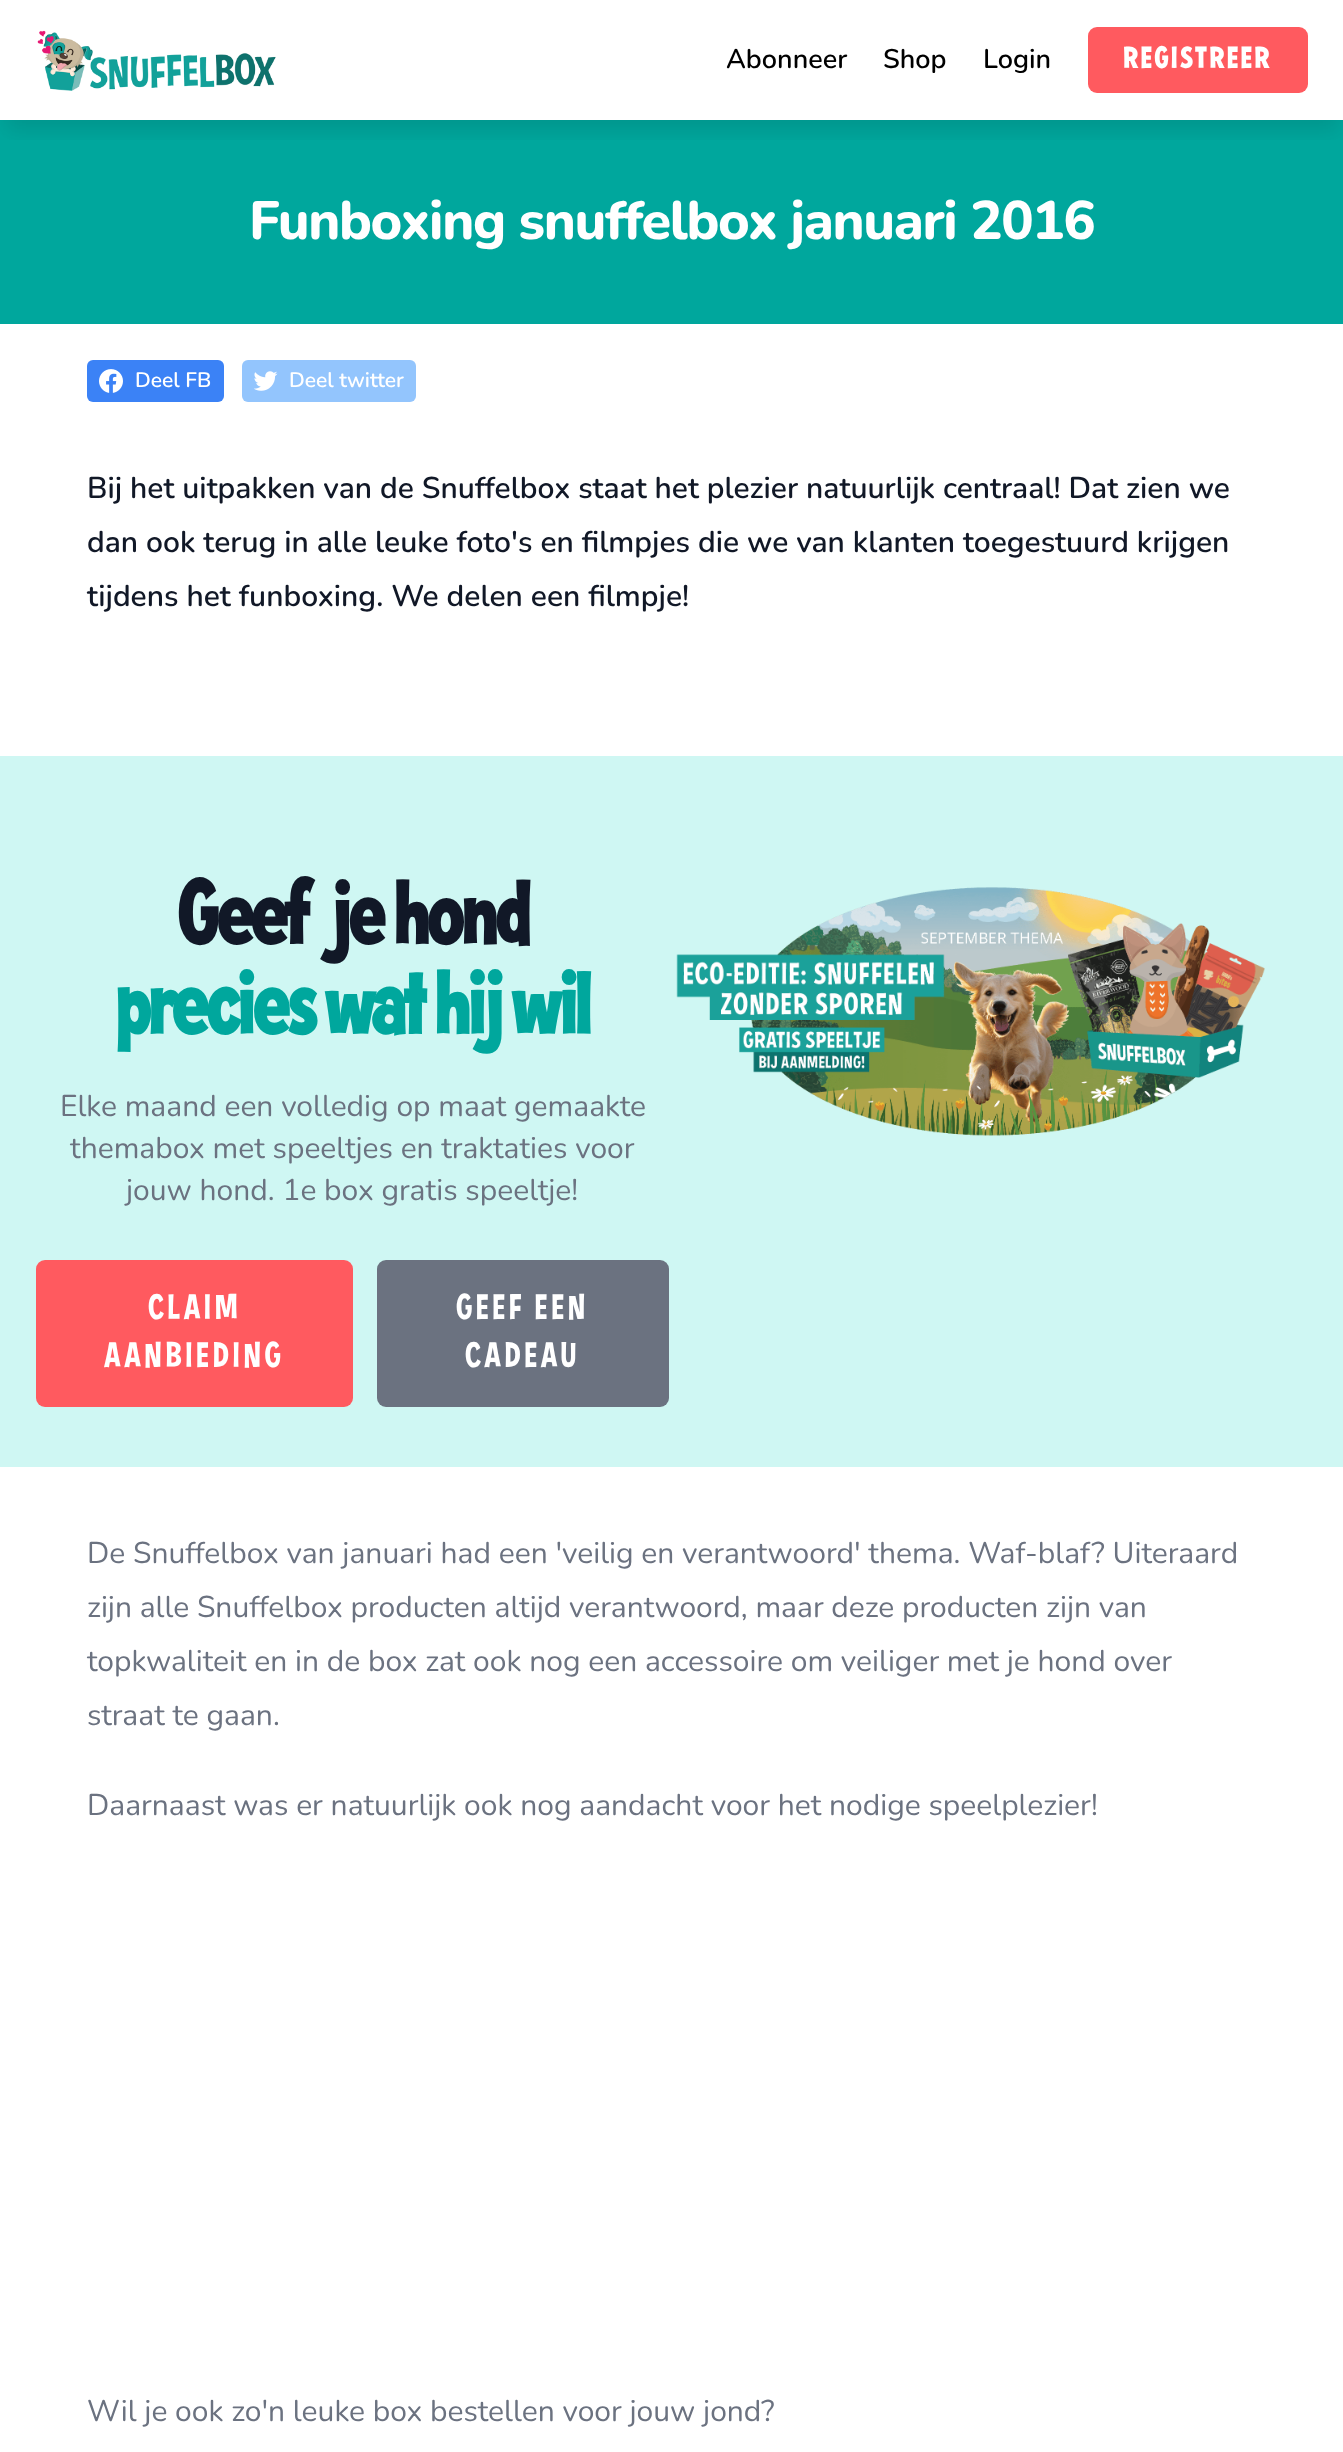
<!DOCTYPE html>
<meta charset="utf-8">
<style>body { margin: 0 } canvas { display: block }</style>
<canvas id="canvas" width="1343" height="2452"></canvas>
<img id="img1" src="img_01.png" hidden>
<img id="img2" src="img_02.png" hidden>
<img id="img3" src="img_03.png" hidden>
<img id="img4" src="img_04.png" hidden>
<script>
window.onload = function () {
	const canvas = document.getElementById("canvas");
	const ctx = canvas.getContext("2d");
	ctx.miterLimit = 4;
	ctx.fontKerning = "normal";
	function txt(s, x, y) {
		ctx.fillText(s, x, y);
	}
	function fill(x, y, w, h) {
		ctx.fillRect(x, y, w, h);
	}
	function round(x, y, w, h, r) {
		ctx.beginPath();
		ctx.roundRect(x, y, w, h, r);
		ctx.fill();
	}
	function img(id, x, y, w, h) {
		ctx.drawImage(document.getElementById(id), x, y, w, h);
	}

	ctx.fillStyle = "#FFFFFF";
	fill(0, 0, 1343, 2452);
	ctx.fillStyle = "#00A79D";
	fill(0, 120, 1343, 204);
	ctx.save();
	ctx.beginPath();
	ctx.rect(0, 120, 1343, 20);
	ctx.clip();
	ctx.fillStyle = "rgba(0, 0, 0, 0.1)";
	ctx.filter = "blur(11px)";
	ctx.beginPath();
	ctx.rect(5, 20, 1335, 111);
	ctx.fill();
	ctx.filter = "none";
	ctx.restore();
	img("img1", 37, 30, 239, 61);
	ctx.fillStyle = "#FF5A5F";
	round(1088, 27, 220, 66, 9);
	ctx.fillStyle = "#3B82F6";
	round(87, 360, 137, 42, 6);
	img("img2", 99, 369, 24, 24);
	ctx.fillStyle = "#93C5FD";
	round(242, 360, 174, 42, 6);
	img("img3", 254, 371, 24, 20);
	ctx.fillStyle = "#CFF7F3";
	fill(0, 756, 1343, 711);
	ctx.fillStyle = "#FF5A5F";
	round(36, 1260, 317, 147, 9);
	ctx.fillStyle = "#6B7280";
	round(377, 1260, 292, 147, 9);
	img("img4", 676, 887, 589, 249);
	ctx.font = "600 27px Nunito";
	ctx.fillStyle = "#000000";
	txt("Abonneer", 726, 68);
	txt("Shop", 883, 68);
	txt("Login", 983, 68);
	ctx.letterSpacing = "3px";
	ctx.font = "bold 30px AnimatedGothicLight";
	ctx.fillStyle = "#FFFFFF";
	txt("REGISTREER", 1123, 68);
	ctx.letterSpacing = "-1.35px";
	ctx.font = "800 54px Nunito";
	txt("Funboxing snuffelbox januari 2016", 249, 239);
	ctx.letterSpacing = "0px";
	ctx.font = "600 21px Nunito";
	txt("Deel FB", 135, 387);
	txt("Deel twitter", 289, 387);
	ctx.font = "600 30px Nunito";
	ctx.fillStyle = "#111827";
	txt("Bij het uitpakken van de Snuffelbox staat het plezier natuurlijk centraal! Dat zien we", 87, 498);
	txt("dan ook terug in alle leuke foto's en filmpjes die we van klanten toegestuurd krijgen", 87, 552);
	txt("tijdens het funboxing. We delen een filmpje!", 87, 606);
	ctx.letterSpacing = "-2.25px";
	ctx.font = "bold 90px AnimatedGothicLight";
	txt("Geef je hond", 177, 944);
	ctx.fillStyle = "#00A79D";
	txt("precies wat hij wil", 115, 1034);
	ctx.letterSpacing = "0px";
	ctx.font = "30px Nunito";
	ctx.fillStyle = "#6B7280";
	txt("Elke maand een volledig op maat gemaakte", 60, 1116);
	txt("themabox met speeltjes en traktaties voor", 70, 1158);
	txt("jouw hond. 1e box gratis speeltje!", 126, 1200);
	ctx.letterSpacing = "3.6px";
	ctx.font = "300 36px AnimatedGothicLight";
	ctx.fillStyle = "#FFFFFF";
	txt("CLAIM", 148, 1319);
	txt("AANBIEDING", 104, 1367);
	txt("GEEF EEN", 456, 1319);
	txt("CADEAU", 465, 1367);
	ctx.letterSpacing = "0px";
	ctx.font = "30px Nunito";
	ctx.fillStyle = "#6B7280";
	txt("De Snuffelbox van januari had een 'veilig en verantwoord' thema. Waf-blaf? Uiteraard", 87, 1563);
	txt("zijn alle Snuffelbox producten altijd verantwoord, maar deze producten zijn van", 87, 1617);
	txt("topkwaliteit en in de box zat ook nog een accessoire om veiliger met je hond over", 87, 1671);
	txt("straat te gaan.", 87, 1725);
	txt("Daarnaast was er natuurlijk ook nog aandacht voor het nodige speelplezier!", 87, 1815);
	txt("Wil je ook zo'n leuke box bestellen voor jouw jond?", 87, 2421);
};
</script>
